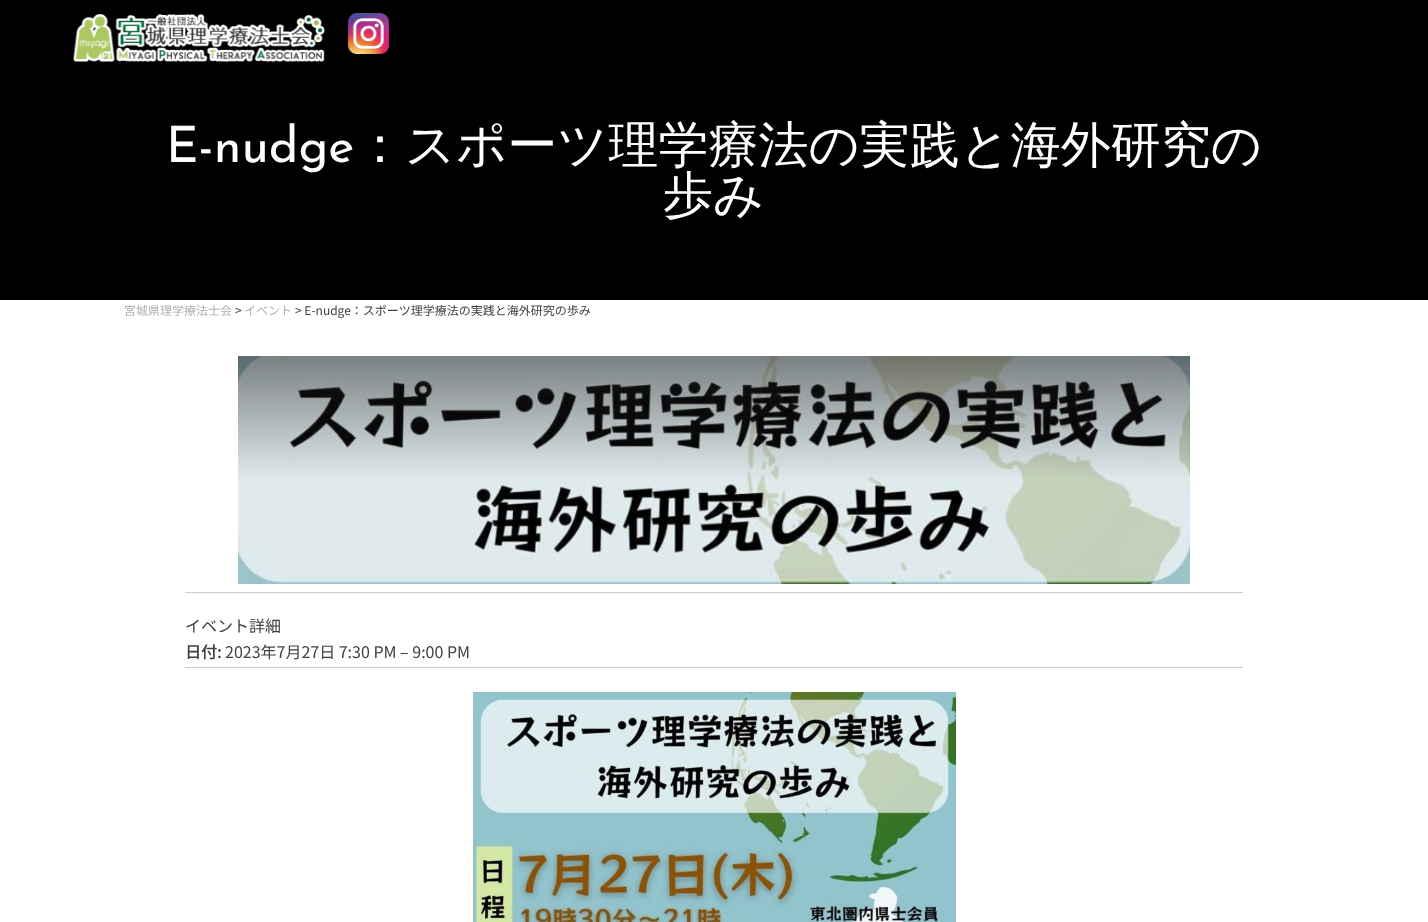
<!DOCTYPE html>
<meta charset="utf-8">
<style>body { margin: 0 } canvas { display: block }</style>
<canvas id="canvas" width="1428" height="922"></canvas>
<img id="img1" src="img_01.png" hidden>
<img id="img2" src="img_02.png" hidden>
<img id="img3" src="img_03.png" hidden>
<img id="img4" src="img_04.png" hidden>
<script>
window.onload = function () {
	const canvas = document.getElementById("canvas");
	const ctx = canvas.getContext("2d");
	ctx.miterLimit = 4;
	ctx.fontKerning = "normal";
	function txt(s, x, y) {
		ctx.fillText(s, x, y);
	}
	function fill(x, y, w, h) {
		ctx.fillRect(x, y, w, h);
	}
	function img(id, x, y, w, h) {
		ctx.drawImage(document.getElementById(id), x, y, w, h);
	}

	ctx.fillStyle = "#FFFFFF";
	fill(0, 0, 1428, 922);
	ctx.fillStyle = "#000000";
	fill(0, 0, 1428, 300);
	img("img1", 73, 14, 252, 48);
	img("img2", 347, 13, 42, 41);
	img("img3", 238, 356, 952, 228);
	ctx.fillStyle = "#CCCCCC";
	fill(185, 592, 1058, 1);
	fill(185, 667, 1058, 1);
	img("img4", 473, 692, 483, 230);
	ctx.font = "100 50px Josefin Sans";
	ctx.fillStyle = "#FFFFFF";
	txt("E-nudge", 166, 162);
	ctx.font = "500 50px WenQuanYi Zen Hei";
	txt("：スポーツ理学療法の実践と海外研究の", 355, 162);
	txt("歩み", 663, 212);
	ctx.font = "100 12px Noto Sans JP";
	ctx.fillStyle = "#AFAFAF";
	txt("宮城県理学療法士会", 124, 315);
	ctx.fillStyle = "#404040";
	txt(">", 235, 315);
	ctx.fillStyle = "#AFAFAF";
	txt("イベント", 244, 315);
	ctx.fillStyle = "#404040";
	txt("> E-nudge：スポーツ理学療法の実践と海外研究の歩み", 295, 315);
	ctx.font = "100 16px Noto Sans JP";
	txt("イベント詳細", 185, 632);
	ctx.font = "bold 16px Noto Sans JP";
	txt("日付:", 185, 658);
	ctx.font = "100 16px Noto Sans JP";
	txt("2023年7月27日 7:30 PM – 9:00 PM", 225, 658);
};
</script>
